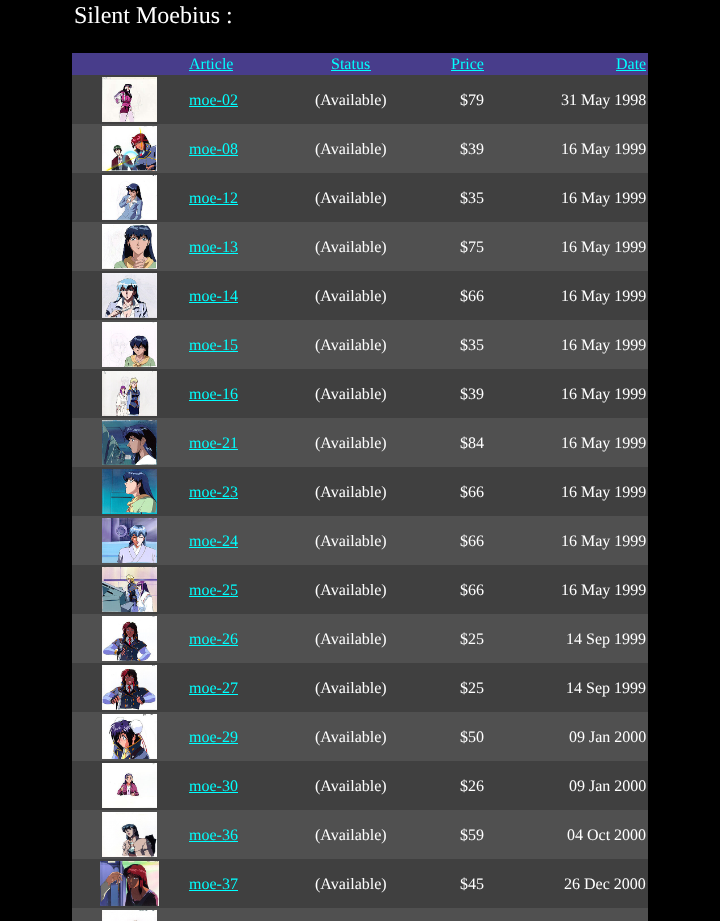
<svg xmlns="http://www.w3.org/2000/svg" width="720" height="921">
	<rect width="100%" height="100%" fill="#000000" />
	<text x="74" y="23" font-family="Liberation Serif" font-size="24" fill="#FFFFFF">Silent Moebius :</text>
	<rect x="72" y="53" width="576" height="22" fill="#483D8B" />
	<text x="189" y="69" font-family="Liberation Serif" font-size="16" fill="#00FFFF">Article</text>
	<rect x="189" y="70" width="44" height="1" fill="#00FFFF" />
	<text x="331" y="69" font-family="Liberation Serif" font-size="16" fill="#00FFFF">Status</text>
	<rect x="331" y="70" width="40" height="1" fill="#00FFFF" />
	<text x="451" y="69" font-family="Liberation Serif" font-size="16" fill="#00FFFF">Price</text>
	<rect x="451" y="70" width="33" height="1" fill="#00FFFF" />
	<text x="616" y="69" font-family="Liberation Serif" font-size="16" fill="#00FFFF">Date</text>
	<rect x="616" y="70" width="30" height="1" fill="#00FFFF" />
	<rect x="72" y="75" width="576" height="49" fill="#404040" />
	<image x="102" y="77" width="55" height="45" href="assets/img1.png" />
	<text x="189" y="105" font-family="Liberation Serif" font-size="16" fill="#00FFFF">moe-02</text>
	<rect x="189" y="106" width="49" height="1" fill="#00FFFF" />
	<g font-family="Liberation Serif" font-size="16" fill="#FFFFFF">
		<text x="315" y="105">(Available)</text>
		<text x="460" y="105">$79</text>
		<text x="561" y="105">31 May 1998</text>
	</g>
	<rect x="72" y="124" width="576" height="49" fill="#505050" />
	<image x="102" y="126" width="55" height="45" href="assets/img2.png" />
	<text x="189" y="154" font-family="Liberation Serif" font-size="16" fill="#00FFFF">moe-08</text>
	<rect x="189" y="155" width="49" height="1" fill="#00FFFF" />
	<g font-family="Liberation Serif" font-size="16" fill="#FFFFFF">
		<text x="315" y="154">(Available)</text>
		<text x="460" y="154">$39</text>
		<text x="561" y="154">16 May 1999</text>
	</g>
	<rect x="72" y="173" width="576" height="49" fill="#404040" />
	<image x="102" y="175" width="55" height="45" href="assets/img3.png" />
	<text x="189" y="203" font-family="Liberation Serif" font-size="16" fill="#00FFFF">moe-12</text>
	<rect x="189" y="204" width="49" height="1" fill="#00FFFF" />
	<g font-family="Liberation Serif" font-size="16" fill="#FFFFFF">
		<text x="315" y="203">(Available)</text>
		<text x="460" y="203">$35</text>
		<text x="561" y="203">16 May 1999</text>
	</g>
	<rect x="72" y="222" width="576" height="49" fill="#505050" />
	<image x="102" y="224" width="55" height="45" href="assets/img4.png" />
	<text x="189" y="252" font-family="Liberation Serif" font-size="16" fill="#00FFFF">moe-13</text>
	<rect x="189" y="253" width="49" height="1" fill="#00FFFF" />
	<g font-family="Liberation Serif" font-size="16" fill="#FFFFFF">
		<text x="315" y="252">(Available)</text>
		<text x="460" y="252">$75</text>
		<text x="561" y="252">16 May 1999</text>
	</g>
	<rect x="72" y="271" width="576" height="49" fill="#404040" />
	<image x="102" y="273" width="55" height="45" href="assets/img5.png" />
	<text x="189" y="301" font-family="Liberation Serif" font-size="16" fill="#00FFFF">moe-14</text>
	<rect x="189" y="302" width="49" height="1" fill="#00FFFF" />
	<g font-family="Liberation Serif" font-size="16" fill="#FFFFFF">
		<text x="315" y="301">(Available)</text>
		<text x="460" y="301">$66</text>
		<text x="561" y="301">16 May 1999</text>
	</g>
	<rect x="72" y="320" width="576" height="49" fill="#505050" />
	<image x="102" y="322" width="55" height="45" href="assets/img6.png" />
	<text x="189" y="350" font-family="Liberation Serif" font-size="16" fill="#00FFFF">moe-15</text>
	<rect x="189" y="351" width="49" height="1" fill="#00FFFF" />
	<g font-family="Liberation Serif" font-size="16" fill="#FFFFFF">
		<text x="315" y="350">(Available)</text>
		<text x="460" y="350">$35</text>
		<text x="561" y="350">16 May 1999</text>
	</g>
	<rect x="72" y="369" width="576" height="49" fill="#404040" />
	<image x="102" y="371" width="55" height="45" href="assets/img7.png" />
	<text x="189" y="399" font-family="Liberation Serif" font-size="16" fill="#00FFFF">moe-16</text>
	<rect x="189" y="400" width="49" height="1" fill="#00FFFF" />
	<g font-family="Liberation Serif" font-size="16" fill="#FFFFFF">
		<text x="315" y="399">(Available)</text>
		<text x="460" y="399">$39</text>
		<text x="561" y="399">16 May 1999</text>
	</g>
	<rect x="72" y="418" width="576" height="49" fill="#505050" />
	<image x="102" y="420" width="55" height="45" href="assets/img8.png" />
	<text x="189" y="448" font-family="Liberation Serif" font-size="16" fill="#00FFFF">moe-21</text>
	<rect x="189" y="449" width="49" height="1" fill="#00FFFF" />
	<g font-family="Liberation Serif" font-size="16" fill="#FFFFFF">
		<text x="315" y="448">(Available)</text>
		<text x="460" y="448">$84</text>
		<text x="561" y="448">16 May 1999</text>
	</g>
	<rect x="72" y="467" width="576" height="49" fill="#404040" />
	<image x="102" y="469" width="55" height="45" href="assets/img9.png" />
	<text x="189" y="497" font-family="Liberation Serif" font-size="16" fill="#00FFFF">moe-23</text>
	<rect x="189" y="498" width="49" height="1" fill="#00FFFF" />
	<g font-family="Liberation Serif" font-size="16" fill="#FFFFFF">
		<text x="315" y="497">(Available)</text>
		<text x="460" y="497">$66</text>
		<text x="561" y="497">16 May 1999</text>
	</g>
	<rect x="72" y="516" width="576" height="49" fill="#505050" />
	<image x="102" y="518" width="55" height="45" href="assets/img10.png" />
	<text x="189" y="546" font-family="Liberation Serif" font-size="16" fill="#00FFFF">moe-24</text>
	<rect x="189" y="547" width="49" height="1" fill="#00FFFF" />
	<g font-family="Liberation Serif" font-size="16" fill="#FFFFFF">
		<text x="315" y="546">(Available)</text>
		<text x="460" y="546">$66</text>
		<text x="561" y="546">16 May 1999</text>
	</g>
	<rect x="72" y="565" width="576" height="49" fill="#404040" />
	<image x="102" y="567" width="55" height="45" href="assets/img11.png" />
	<text x="189" y="595" font-family="Liberation Serif" font-size="16" fill="#00FFFF">moe-25</text>
	<rect x="189" y="596" width="49" height="1" fill="#00FFFF" />
	<g font-family="Liberation Serif" font-size="16" fill="#FFFFFF">
		<text x="315" y="595">(Available)</text>
		<text x="460" y="595">$66</text>
		<text x="561" y="595">16 May 1999</text>
	</g>
	<rect x="72" y="614" width="576" height="49" fill="#505050" />
	<image x="102" y="616" width="55" height="45" href="assets/img12.png" />
	<text x="189" y="644" font-family="Liberation Serif" font-size="16" fill="#00FFFF">moe-26</text>
	<rect x="189" y="645" width="49" height="1" fill="#00FFFF" />
	<g font-family="Liberation Serif" font-size="16" fill="#FFFFFF">
		<text x="315" y="644">(Available)</text>
		<text x="460" y="644">$25</text>
		<text x="566" y="644">14 Sep 1999</text>
	</g>
	<rect x="72" y="663" width="576" height="49" fill="#404040" />
	<image x="102" y="665" width="55" height="45" href="assets/img13.png" />
	<text x="189" y="693" font-family="Liberation Serif" font-size="16" fill="#00FFFF">moe-27</text>
	<rect x="189" y="694" width="49" height="1" fill="#00FFFF" />
	<g font-family="Liberation Serif" font-size="16" fill="#FFFFFF">
		<text x="315" y="693">(Available)</text>
		<text x="460" y="693">$25</text>
		<text x="566" y="693">14 Sep 1999</text>
	</g>
	<rect x="72" y="712" width="576" height="49" fill="#505050" />
	<image x="102" y="714" width="55" height="45" href="assets/img14.png" />
	<text x="189" y="742" font-family="Liberation Serif" font-size="16" fill="#00FFFF">moe-29</text>
	<rect x="189" y="743" width="49" height="1" fill="#00FFFF" />
	<g font-family="Liberation Serif" font-size="16" fill="#FFFFFF">
		<text x="315" y="742">(Available)</text>
		<text x="460" y="742">$50</text>
		<text x="569" y="742">09 Jan 2000</text>
	</g>
	<rect x="72" y="761" width="576" height="49" fill="#404040" />
	<image x="102" y="763" width="55" height="45" href="assets/img15.png" />
	<text x="189" y="791" font-family="Liberation Serif" font-size="16" fill="#00FFFF">moe-30</text>
	<rect x="189" y="792" width="49" height="1" fill="#00FFFF" />
	<g font-family="Liberation Serif" font-size="16" fill="#FFFFFF">
		<text x="315" y="791">(Available)</text>
		<text x="460" y="791">$26</text>
		<text x="569" y="791">09 Jan 2000</text>
	</g>
	<rect x="72" y="810" width="576" height="49" fill="#505050" />
	<image x="102" y="812" width="55" height="45" href="assets/img16.png" />
	<text x="189" y="840" font-family="Liberation Serif" font-size="16" fill="#00FFFF">moe-36</text>
	<rect x="189" y="841" width="49" height="1" fill="#00FFFF" />
	<g font-family="Liberation Serif" font-size="16" fill="#FFFFFF">
		<text x="315" y="840">(Available)</text>
		<text x="460" y="840">$59</text>
		<text x="567" y="840">04 Oct 2000</text>
	</g>
	<rect x="72" y="859" width="576" height="49" fill="#404040" />
	<image x="100" y="861" width="59" height="45" href="assets/img17.png" />
	<text x="189" y="889" font-family="Liberation Serif" font-size="16" fill="#00FFFF">moe-37</text>
	<rect x="189" y="890" width="49" height="1" fill="#00FFFF" />
	<g font-family="Liberation Serif" font-size="16" fill="#FFFFFF">
		<text x="315" y="889">(Available)</text>
		<text x="460" y="889">$45</text>
		<text x="564" y="889">26 Dec 2000</text>
	</g>
	<rect x="72" y="908" width="576" height="13" fill="#505050" />
	<image x="102" y="910" width="55" height="11" href="assets/img18.png" />
</svg>
